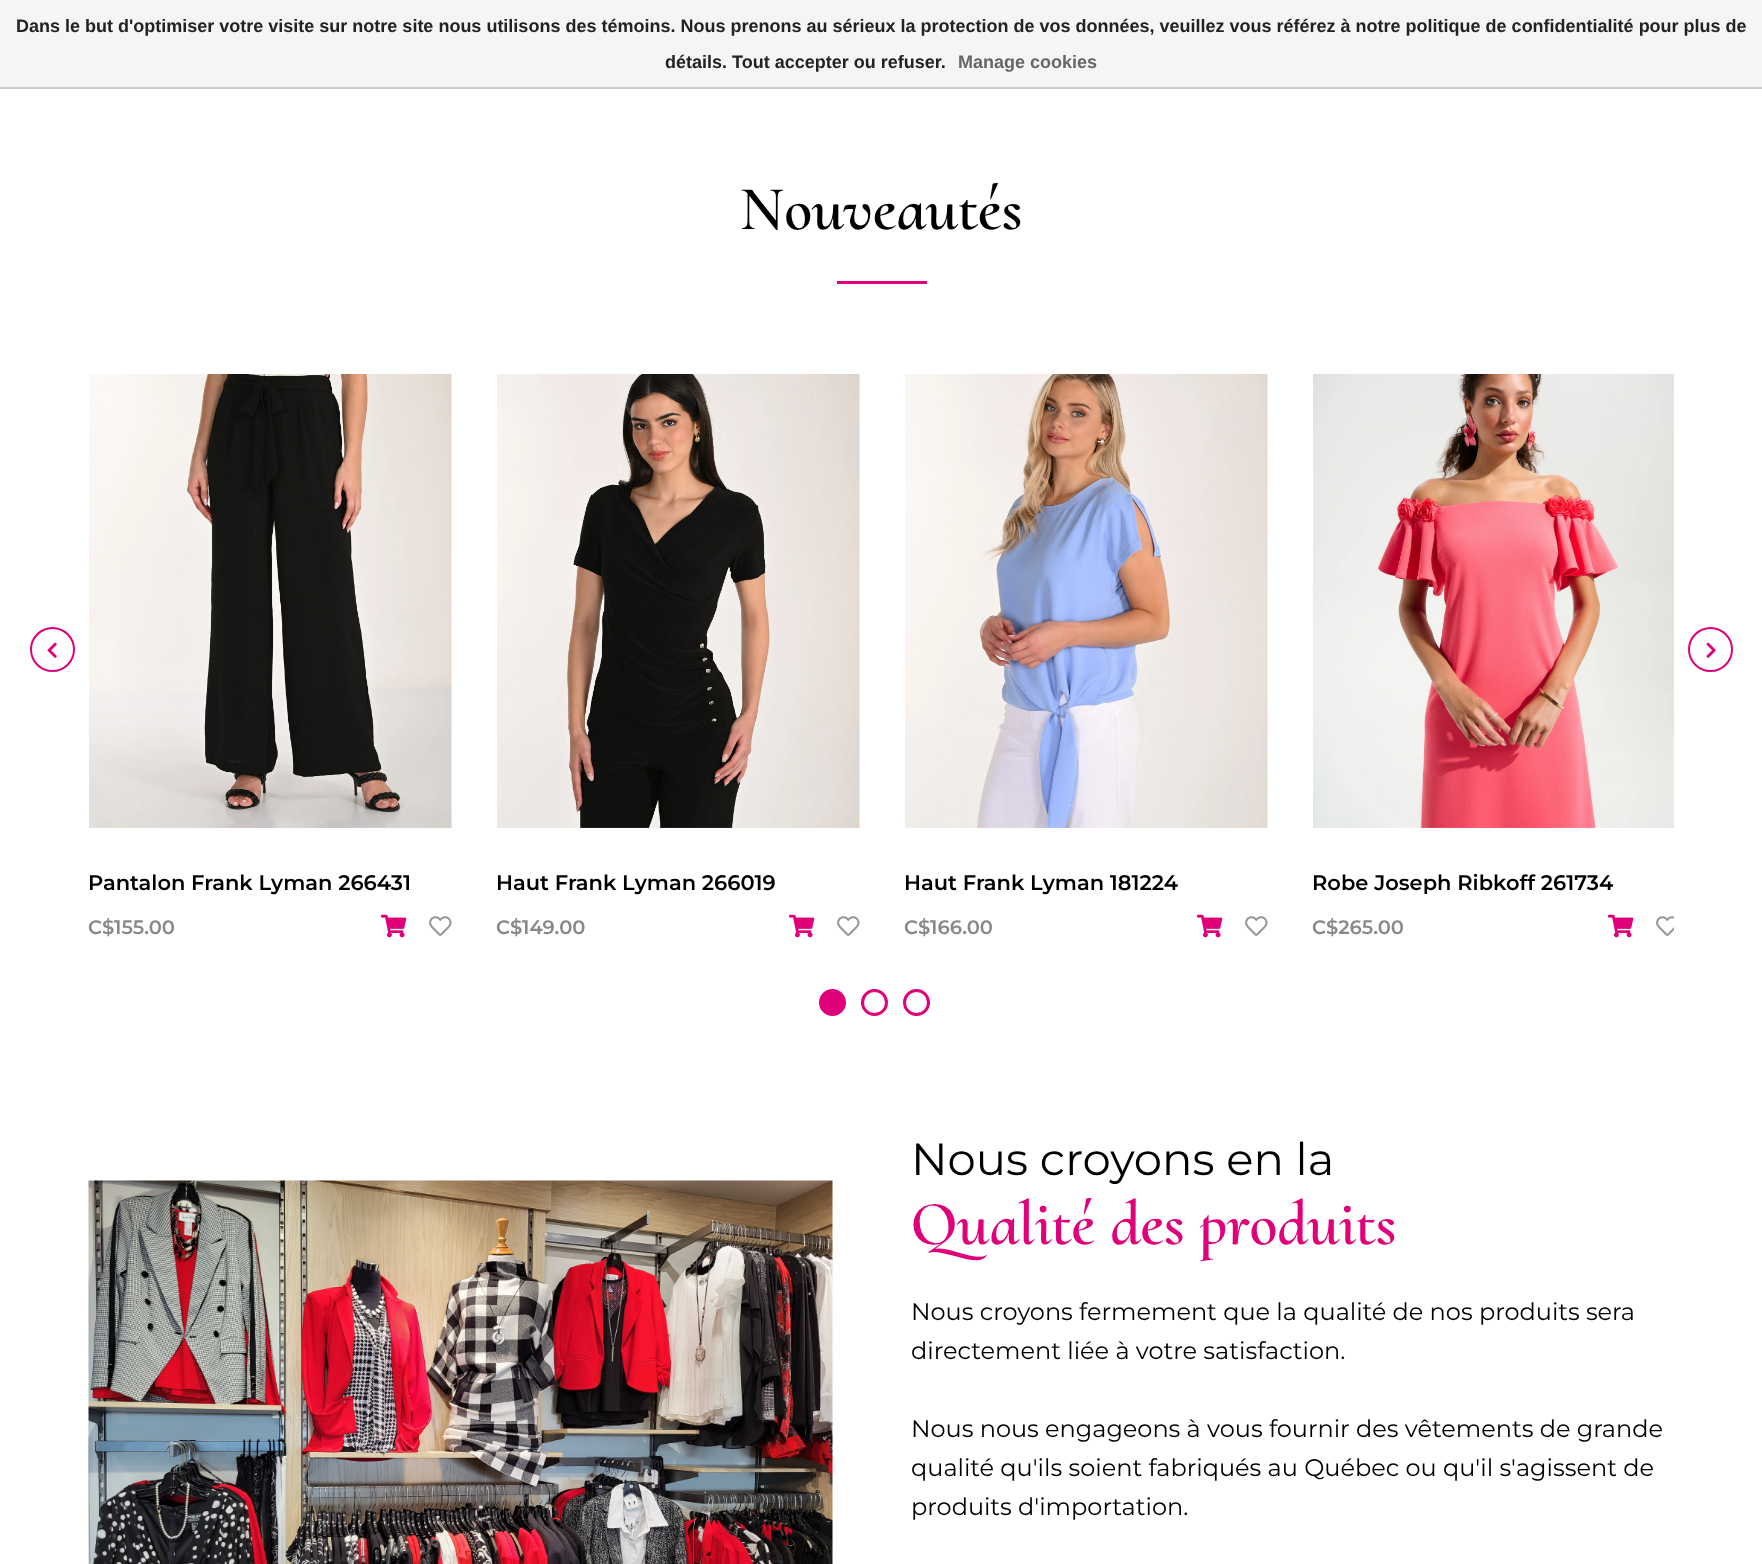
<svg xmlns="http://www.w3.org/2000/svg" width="1762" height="1564">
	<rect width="100%" height="100%" fill="#FFFFFF" />
	<rect x="0" y="0" width="1762" height="87" fill="#F5F5F5" />
	<rect x="0" y="87" width="1762" height="2" fill="#CCCCCC" />
	<g font-family="Liberation Sans" font-size="18" font-weight="700" fill="#222222">
		<text x="16" y="32">Dans le but d'optimiser votre visite sur notre site nous utilisons des témoins. Nous prenons au sérieux la protection de vos données, veuillez vous référez à notre politique de confidentialité pour plus de</text>
		<text x="665" y="68">détails. Tout accepter ou refuser.</text>
	</g>
	<text x="958" y="68" font-family="Liberation Sans" font-size="18" font-weight="700" fill="#666666">Manage cookies</text>
	<text x="740" y="229" font-family="Cormorant Upright" font-size="63" font-weight="600" fill="#000000">Nouveautés</text>
	<rect x="837" y="281" width="90" height="3" fill="#E0007A" />
	<circle cx="52.5" cy="649.5" r="21.5" fill="none" stroke="#E0007A" stroke-width="2" />
	<image x="47" y="642" width="10" height="16" href="assets/img1.png" />
	<circle cx="1710.5" cy="649.5" r="21.5" fill="none" stroke="#E0007A" stroke-width="2" />
	<image x="1706" y="642" width="10" height="16" href="assets/img2.png" />
	<image x="89" y="374" width="363" height="454" href="assets/img3.png" />
	<text x="88" y="890" font-family="Montserrat" font-size="21" font-weight="600" fill="#000000">Pantalon Frank Lyman 266431</text>
	<text x="88" y="934" font-family="Montserrat" font-size="19.5" font-weight="600" fill="#888888">C$155.00</text>
	<image x="381" y="914" width="26" height="24" href="assets/img4.png" />
	<image x="429" y="916" width="23" height="20" href="assets/img5.png" />
	<image x="497" y="374" width="363" height="454" href="assets/img6.png" />
	<text x="496" y="890" font-family="Montserrat" font-size="21" font-weight="600" fill="#000000">Haut Frank Lyman 266019</text>
	<text x="496" y="934" font-family="Montserrat" font-size="19.5" font-weight="600" fill="#888888">C$149.00</text>
	<image x="789" y="914" width="26" height="24" href="assets/img4.png" />
	<image x="837" y="916" width="23" height="20" href="assets/img5.png" />
	<image x="905" y="374" width="363" height="454" href="assets/img7.png" />
	<text x="904" y="890" font-family="Montserrat" font-size="21" font-weight="600" fill="#000000">Haut Frank Lyman 181224</text>
	<text x="904" y="934" font-family="Montserrat" font-size="19.5" font-weight="600" fill="#888888">C$166.00</text>
	<image x="1197" y="914" width="26" height="24" href="assets/img4.png" />
	<image x="1245" y="916" width="23" height="20" href="assets/img5.png" />
	<image x="1313" y="374" width="361" height="454" href="assets/img8.png" />
	<text x="1312" y="890" font-family="Montserrat" font-size="21" font-weight="600" fill="#000000">Robe Joseph Ribkoff 261734</text>
	<text x="1312" y="934" font-family="Montserrat" font-size="19.5" font-weight="600" fill="#888888">C$265.00</text>
	<image x="1608" y="914" width="26" height="24" href="assets/img4.png" />
	<image x="1656" y="916" width="18" height="20" href="assets/img9.png" />
	<circle cx="832.5" cy="1002.5" r="12" fill="#E0007A" stroke="#E0007A" stroke-width="3" />
	<circle cx="874.5" cy="1002.5" r="12" fill="none" stroke="#E0007A" stroke-width="3" />
	<circle cx="916.5" cy="1002.5" r="12" fill="none" stroke="#E0007A" stroke-width="3" />
	<image x="88" y="1180" width="745" height="384" href="assets/img10.png" />
	<text x="911" y="1175" font-family="Montserrat" font-size="45" fill="#000000">Nous croyons en la</text>
	<text x="911" y="1244" font-family="Cormorant Upright" font-size="63" font-weight="600" fill="#E0007A">Qualité des produits</text>
	<g font-family="Montserrat" font-size="24" fill="#000000">
		<text x="911" y="1320">Nous croyons fermement que la qualité de nos produits sera</text>
		<text x="911" y="1359">directement liée à votre satisfaction.</text>
		<text x="911" y="1437">Nous nous engageons à vous fournir des vêtements de grande</text>
		<text x="911" y="1476">qualité qu'ils soient fabriqués au Québec ou qu'il s'agissent de</text>
		<text x="911" y="1515">produits d'importation.</text>
	</g>
</svg>
